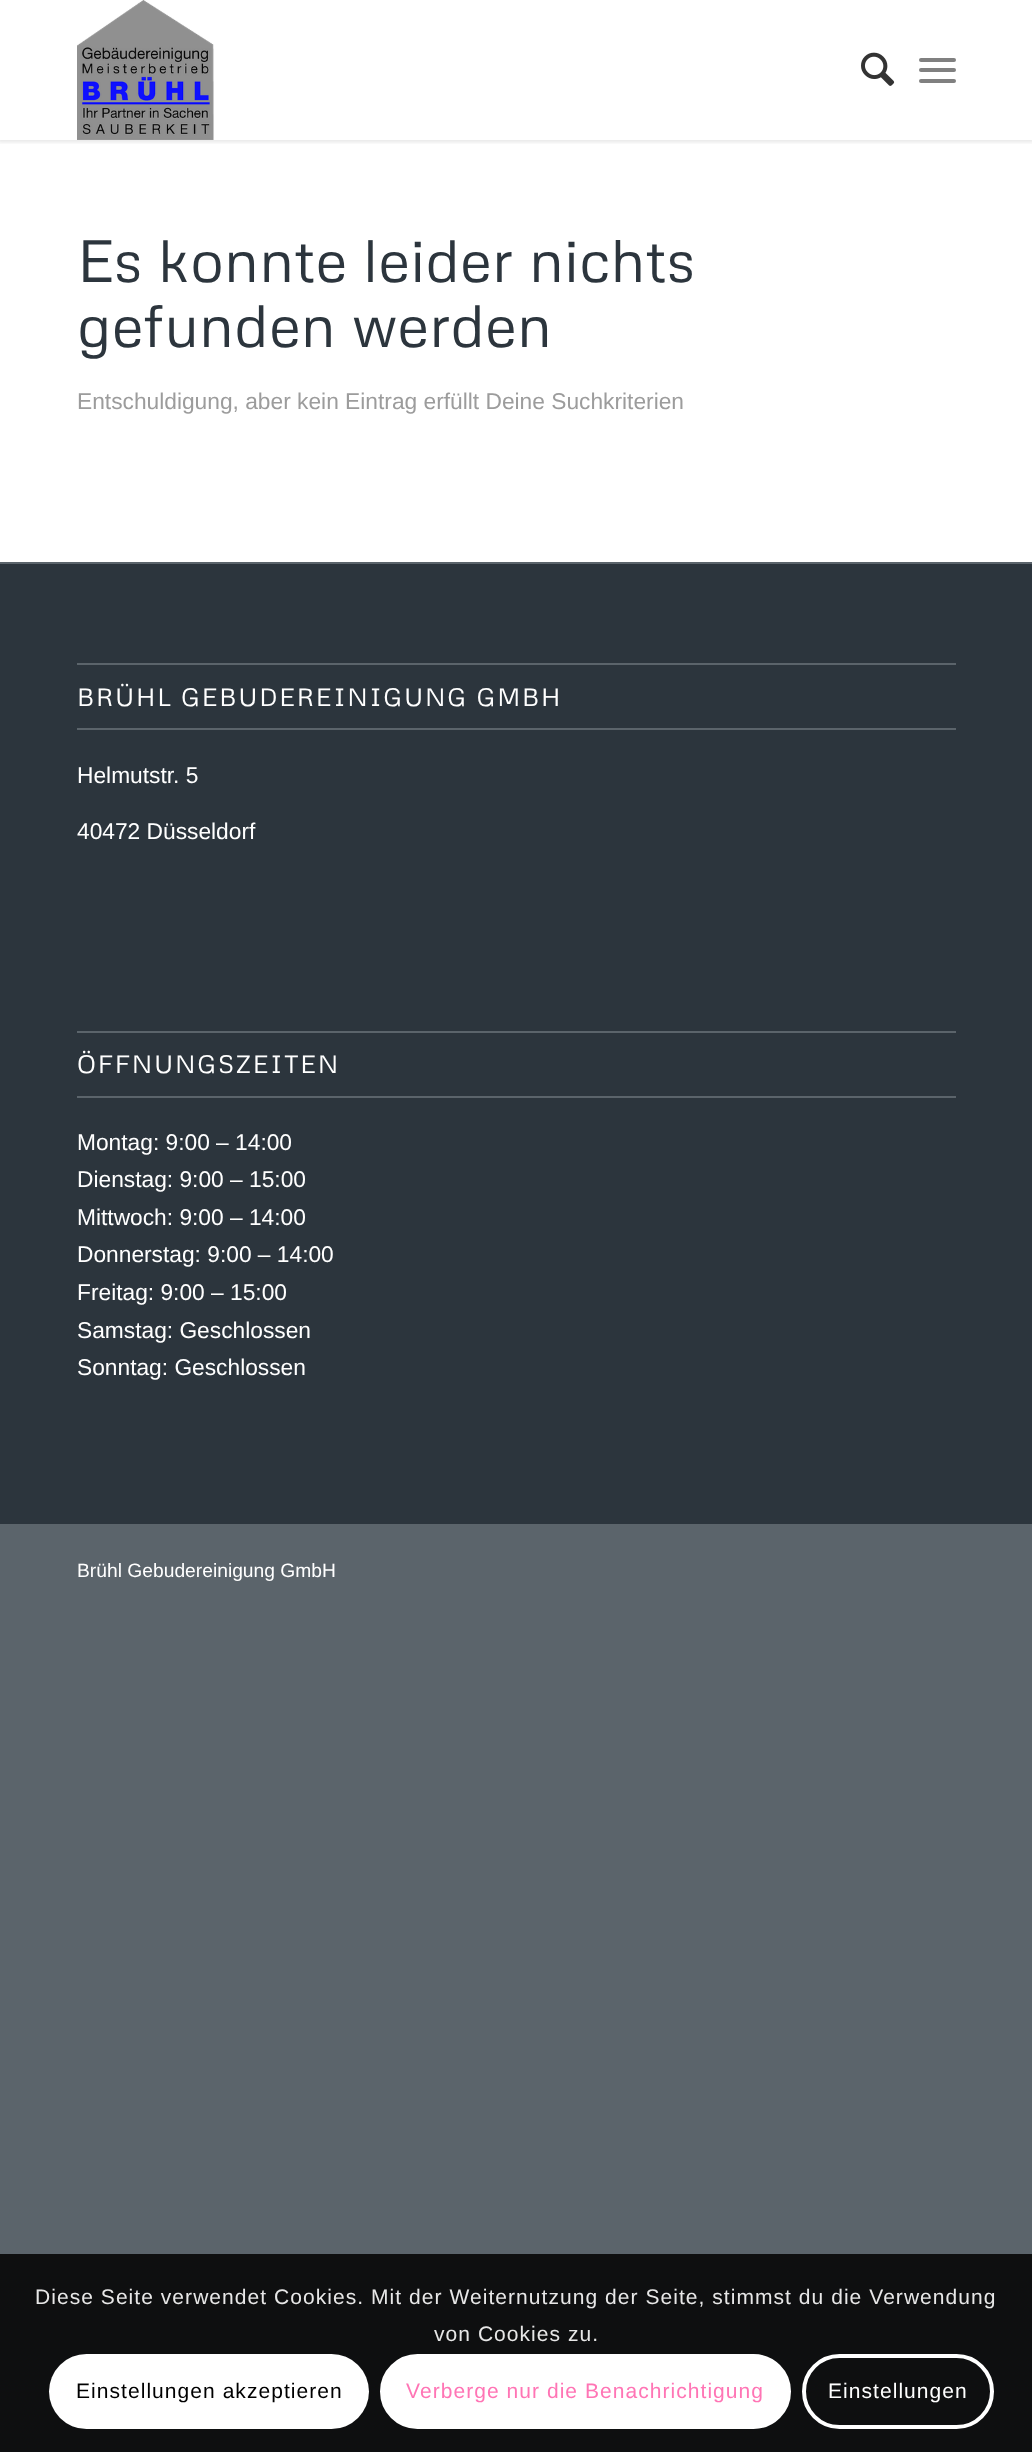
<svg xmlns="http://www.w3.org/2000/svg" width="1032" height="2452">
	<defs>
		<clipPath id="clip1"><rect x="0" y="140" width="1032" height="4" /></clipPath>
	</defs>
	<rect width="100%" height="100%" fill="#5B646B" />
	<rect x="0" y="0" width="1032" height="562" fill="#FFFFFF" />
	<g clip-path="url(#clip1)">
		<rect x="-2" y="-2" width="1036" height="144" fill="#000000" fill-opacity="0.1" filter="blur(2px)" />
	</g>
	<image x="77" y="0" width="137" height="140" href="assets/img1.png" />
	<image x="861" y="52" width="34" height="34" href="assets/img2.png" />
	<rect x="919" y="68" width="37" height="4" rx="2" fill="#808080" />
	<rect x="919" y="58" width="37" height="4" rx="2" fill="#808080" />
	<rect x="919" y="79" width="37" height="4" rx="2" fill="#808080" />
	<g font-family="Metrophobic" font-size="59.5" fill="#2C353D">
		<text x="77" y="282">Es konnte leider nichts</text>
		<text x="77" y="347">gefunden werden</text>
	</g>
	<text x="77" y="409" font-family="Liberation Sans" font-size="22.75" fill="#9C9C9C">Entschuldigung, aber kein Eintrag erfüllt Deine Suchkriterien</text>
	<rect x="0" y="564" width="1032" height="960" fill="#2C353D" />
	<rect x="77" y="663" width="879" height="2" fill="#5B646B" />
	<rect x="77" y="728" width="879" height="2" fill="#5B646B" />
	<text x="77" y="706" font-family="Metrophobic" font-size="25" letter-spacing="1.75" fill="#FFFFFF">BRÜHL GEBUDEREINIGUNG GMBH</text>
	<g font-family="Liberation Sans" font-size="22.75" fill="#FFFFFF">
		<text x="77" y="783">Helmutstr. 5</text>
		<text x="77" y="839">40472 Düsseldorf</text>
	</g>
	<rect x="77" y="1031" width="879" height="2" fill="#5B646B" />
	<rect x="77" y="1096" width="879" height="2" fill="#5B646B" />
	<text x="77" y="1073" font-family="Metrophobic" font-size="25" letter-spacing="1.75" fill="#FFFFFF">ÖFFNUNGSZEITEN</text>
	<g font-family="Liberation Sans" font-size="22.75" fill="#FFFFFF">
		<text x="77" y="1150">Montag: 9:00 – 14:00</text>
		<text x="77" y="1187">Dienstag: 9:00 – 15:00</text>
		<text x="77" y="1225">Mittwoch: 9:00 – 14:00</text>
		<text x="77" y="1262">Donnerstag: 9:00 – 14:00</text>
		<text x="77" y="1300">Freitag: 9:00 – 15:00</text>
		<text x="77" y="1338">Samstag: Geschlossen</text>
		<text x="77" y="1375">Sonntag: Geschlossen</text>
	</g>
	<text x="77" y="1577" font-family="Liberation Sans" font-size="19.25" fill="#FFFFFF">Brühl Gebudereinigung GmbH</text>
	<rect x="0" y="2254" width="1032" height="198" fill="#0E0F10" />
	<g font-family="Liberation Sans" font-size="21" letter-spacing="1.05" fill="#E7E7E7">
		<text x="35" y="2304">Diese Seite verwendet Cookies. Mit der Weiternutzung der Seite, stimmst du die Verwendung</text>
		<text x="434" y="2341">von Cookies zu.</text>
	</g>
	<rect x="49" y="2354" width="320" height="75" rx="37.5" fill="#FFFFFF" />
	<text x="76" y="2398" font-family="Liberation Sans" font-size="21" letter-spacing="1.05" fill="#000000">Einstellungen akzeptieren</text>
	<rect x="382" y="2356" width="407" height="71" rx="35.5" fill="#FFFFFF" stroke="#FFFFFF" stroke-width="4" />
	<text x="406" y="2398" font-family="Liberation Sans" font-size="21" letter-spacing="1.05" fill="#FF75B5">Verberge nur die Benachrichtigung</text>
	<rect x="804" y="2356" width="188" height="71" rx="35.5" fill="none" stroke="#FFFFFF" stroke-width="4" />
	<text x="828" y="2398" font-family="Liberation Sans" font-size="21" letter-spacing="1.05" fill="#FFFFFF">Einstellungen</text>
</svg>
